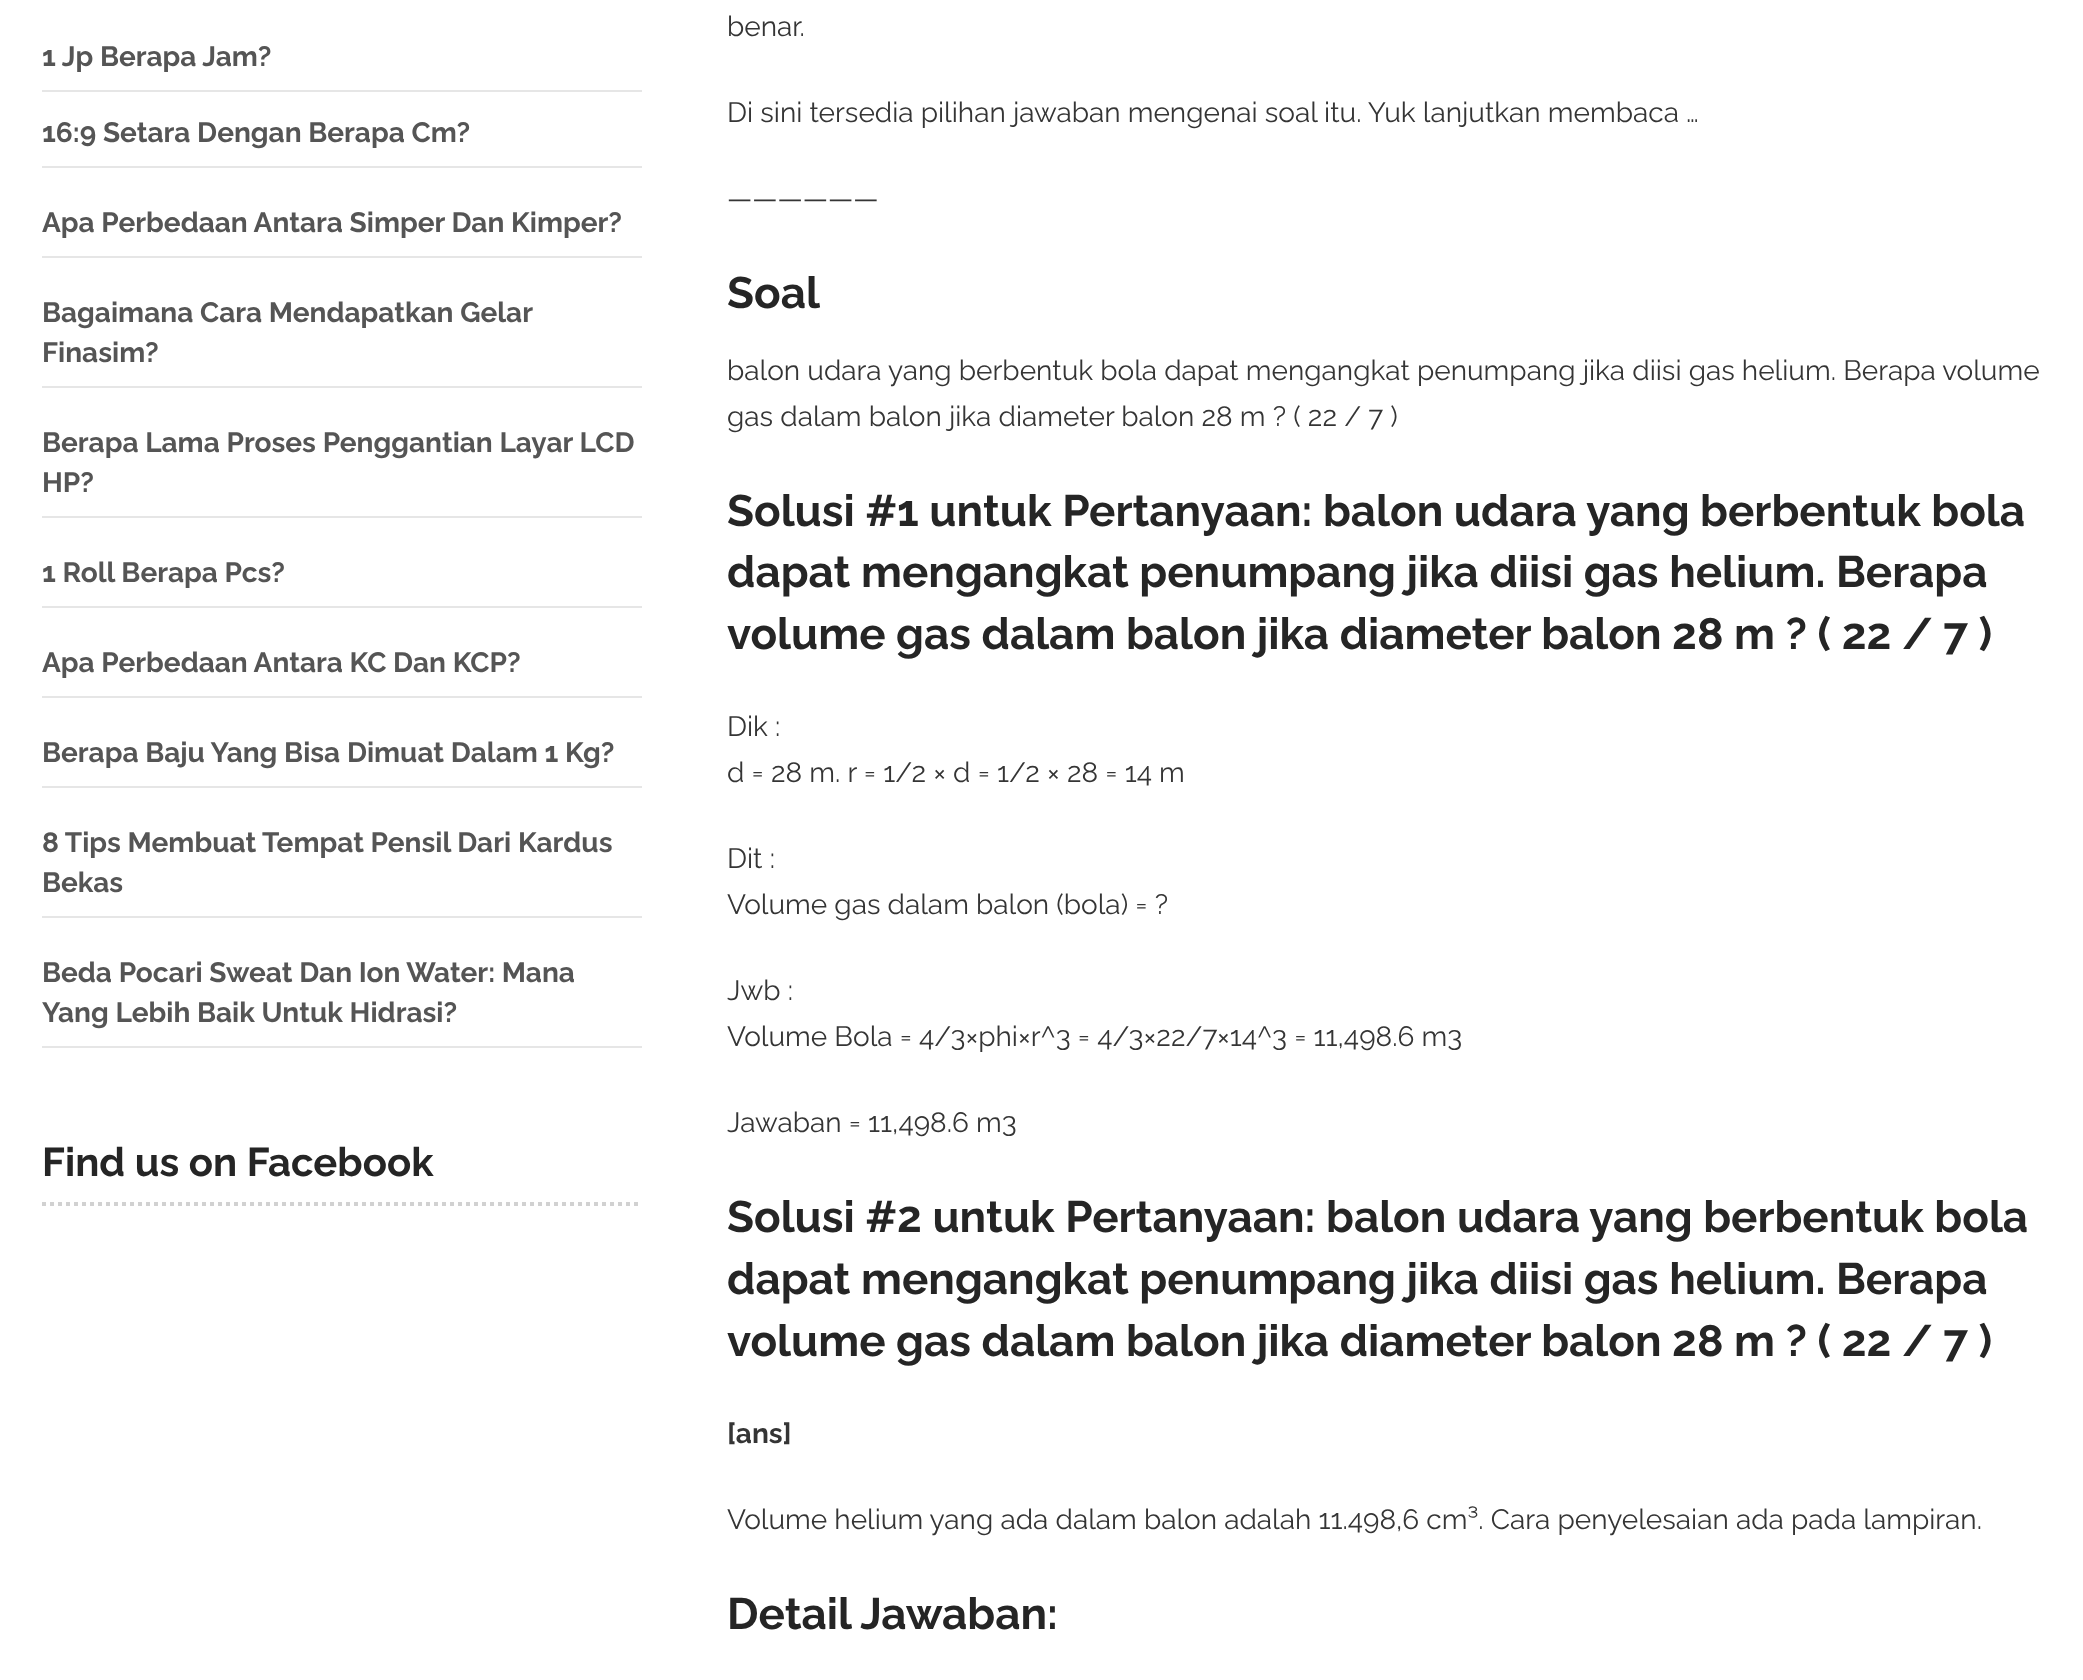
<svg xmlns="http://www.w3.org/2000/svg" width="2083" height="1680">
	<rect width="100%" height="100%" fill="#FFFFFF" />
	<rect x="42" y="90" width="600" height="2" fill="#E6E6E6" />
	<text x="42" y="66" font-family="Raleway" font-size="28" font-weight="700" fill="#555555">1 Jp Berapa Jam?</text>
	<rect x="42" y="166" width="600" height="2" fill="#E6E6E6" />
	<text x="42" y="142" font-family="Raleway" font-size="28" font-weight="700" fill="#555555">16:9 Setara Dengan Berapa Cm?</text>
	<rect x="42" y="256" width="600" height="2" fill="#E6E6E6" />
	<text x="42" y="232" font-family="Raleway" font-size="28" font-weight="700" fill="#555555">Apa Perbedaan Antara Simper Dan Kimper?</text>
	<rect x="42" y="386" width="600" height="2" fill="#E6E6E6" />
	<g font-family="Raleway" font-size="28" font-weight="700" fill="#555555">
		<text x="42" y="322">Bagaimana Cara Mendapatkan Gelar</text>
		<text x="42" y="362">Finasim?</text>
	</g>
	<rect x="42" y="516" width="600" height="2" fill="#E6E6E6" />
	<g font-family="Raleway" font-size="28" font-weight="700" fill="#555555">
		<text x="42" y="452">Berapa Lama Proses Penggantian Layar LCD</text>
		<text x="42" y="492">HP?</text>
	</g>
	<rect x="42" y="606" width="600" height="2" fill="#E6E6E6" />
	<text x="42" y="582" font-family="Raleway" font-size="28" font-weight="700" fill="#555555">1 Roll Berapa Pcs?</text>
	<rect x="42" y="696" width="600" height="2" fill="#E6E6E6" />
	<text x="42" y="672" font-family="Raleway" font-size="28" font-weight="700" fill="#555555">Apa Perbedaan Antara KC Dan KCP?</text>
	<rect x="42" y="786" width="600" height="2" fill="#E6E6E6" />
	<text x="42" y="762" font-family="Raleway" font-size="28" font-weight="700" fill="#555555">Berapa Baju Yang Bisa Dimuat Dalam 1 Kg?</text>
	<rect x="42" y="916" width="600" height="2" fill="#E6E6E6" />
	<g font-family="Raleway" font-size="28" font-weight="700" fill="#555555">
		<text x="42" y="852">8 Tips Membuat Tempat Pensil Dari Kardus</text>
		<text x="42" y="892">Bekas</text>
	</g>
	<rect x="42" y="1046" width="600" height="2" fill="#E6E6E6" />
	<g font-family="Raleway" font-size="28" font-weight="700" fill="#555555">
		<text x="42" y="982">Beda Pocari Sweat Dan Ion Water: Mana</text>
		<text x="42" y="1022">Yang Lebih Baik Untuk Hidrasi?</text>
	</g>
	<path d="M42 1204H642" fill="none" stroke="#D1D1D1" stroke-width="4" stroke-dasharray="4 4" />
	<text x="42" y="1176" font-family="Raleway" font-size="40" font-weight="700" fill="#252525">Find us on Facebook</text>
	<g font-family="Raleway" font-size="28" fill="#353535">
		<text x="727" y="36">benar.</text>
		<text x="727" y="122">Di sini tersedia pilihan jawaban mengenai soal itu. Yuk lanjutkan membaca …</text>
		<text x="727" y="208">——————</text>
	</g>
	<text x="727" y="308" font-family="Raleway" font-size="44" font-weight="700" fill="#252525">Soal</text>
	<g font-family="Raleway" font-size="28" fill="#353535">
		<text x="727" y="380">balon udara yang berbentuk bola dapat mengangkat penumpang jika diisi gas helium. Berapa volume</text>
		<text x="727" y="426">gas dalam balon jika diameter balon 28 m ? ( 22 / 7 )</text>
	</g>
	<g font-family="Raleway" font-size="44" font-weight="700" fill="#252525">
		<text x="727" y="526">Solusi #1 untuk Pertanyaan: balon udara yang berbentuk bola</text>
		<text x="727" y="587">dapat mengangkat penumpang jika diisi gas helium. Berapa</text>
		<text x="727" y="649">volume gas dalam balon jika diameter balon 28 m ? ( 22 / 7 )</text>
	</g>
	<g font-family="Raleway" font-size="28" fill="#353535">
		<text x="727" y="736">Dik :</text>
		<text x="727" y="782">d = 28 m. r = 1/2 × d = 1/2 × 28 = 14 m</text>
		<text x="727" y="868">Dit :</text>
		<text x="727" y="914">Volume gas dalam balon (bola) = ?</text>
		<text x="727" y="1000">Jwb :</text>
		<text x="727" y="1046">Volume Bola = 4/3×phi×r^3 = 4/3×22/7×14^3 = 11,498.6 m3</text>
		<text x="727" y="1132">Jawaban = 11,498.6 m3</text>
	</g>
	<g font-family="Raleway" font-size="44" font-weight="700" fill="#252525">
		<text x="727" y="1232">Solusi #2 untuk Pertanyaan: balon udara yang berbentuk bola</text>
		<text x="727" y="1294">dapat mengangkat penumpang jika diisi gas helium. Berapa</text>
		<text x="727" y="1356">volume gas dalam balon jika diameter balon 28 m ? ( 22 / 7 )</text>
	</g>
	<text x="727" y="1443" font-family="Raleway" font-size="28" font-weight="700" fill="#353535">[ans]</text>
	<text x="727" y="1529" font-family="Raleway" font-size="28" fill="#353535">Volume helium yang ada dalam balon adalah 11.498,6 cm³. Cara penyelesaian ada pada lampiran.</text>
	<text x="727" y="1629" font-family="Raleway" font-size="44" font-weight="700" fill="#252525">Detail Jawaban:</text>
</svg>
